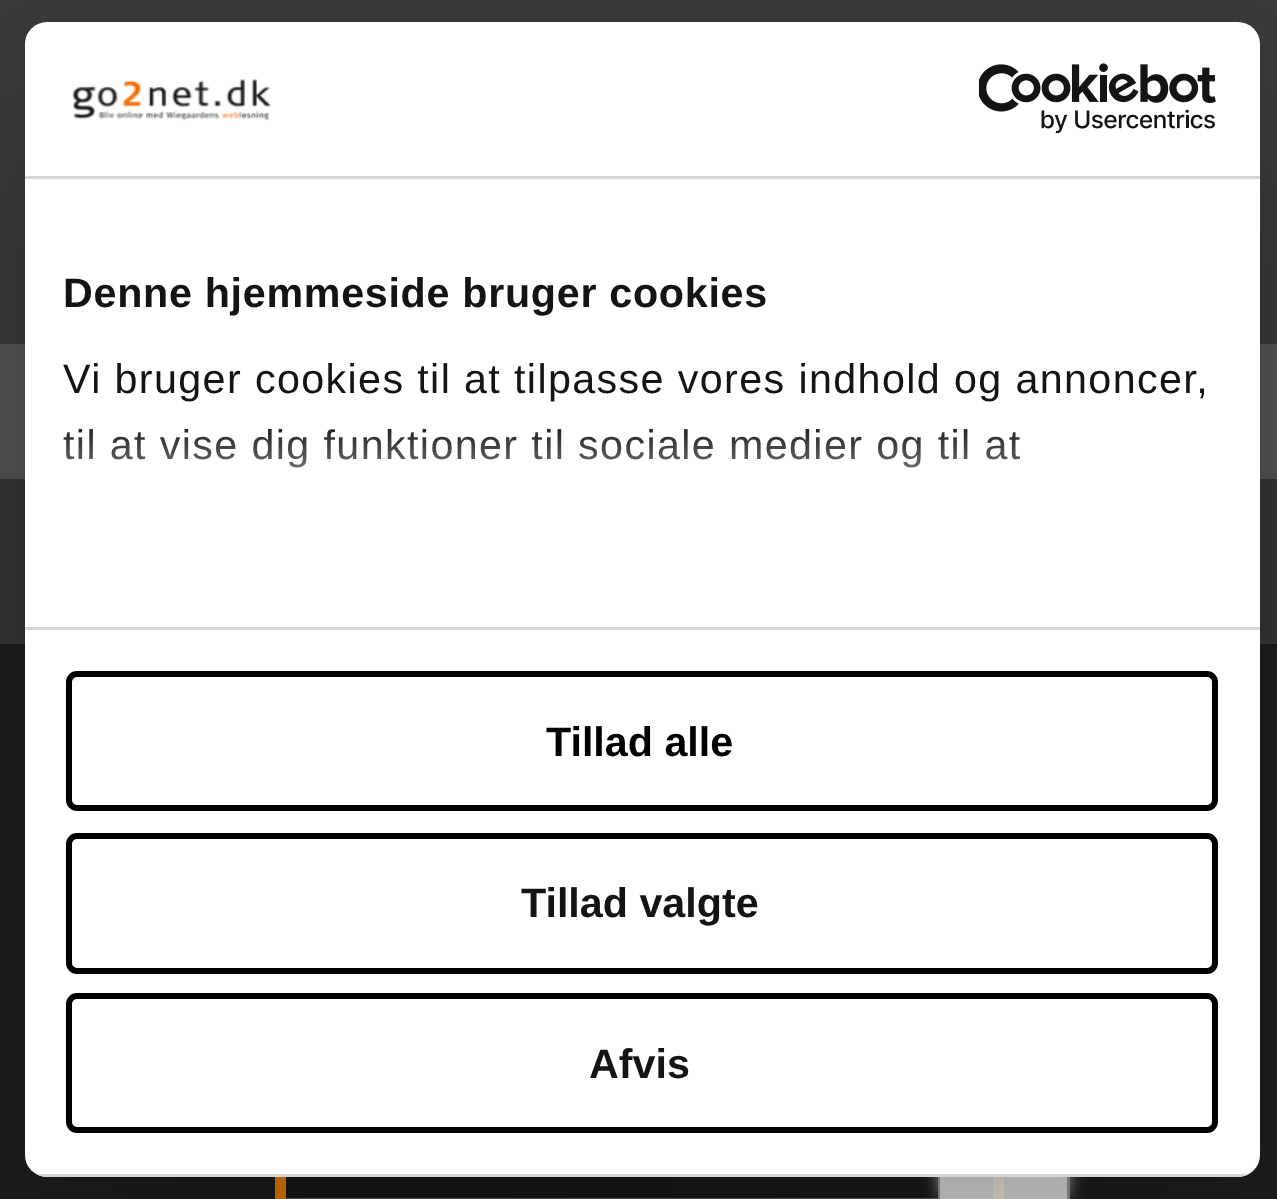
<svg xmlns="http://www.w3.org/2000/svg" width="1277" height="1199">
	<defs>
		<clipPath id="clip1"><path d="M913 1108H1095V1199H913ZM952 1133H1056C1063.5 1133 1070 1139.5 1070 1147V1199H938V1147C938 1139.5 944.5 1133 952 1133Z" clip-rule="evenodd" /></clipPath>
		<clipPath id="clip2"><path d="M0 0H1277V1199H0ZM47 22H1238C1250 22 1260 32 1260 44V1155C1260 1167 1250 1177 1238 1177H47C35 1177 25 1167 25 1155V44C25 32 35 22 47 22Z" clip-rule="evenodd" /></clipPath>
		<linearGradient id="g1" gradientUnits="userSpaceOnUse" x1="623" y1="627" x2="623" y2="421"><stop offset="0" stop-color="#FFFFFF" /><stop offset="0.5" stop-color="#FFFFFF" stop-opacity="0.8" /><stop offset="1" stop-color="#FFFFFF" stop-opacity="0" /></linearGradient>
		<clipPath id="clip3"><rect x="25" y="22" width="1235" height="1155" rx="22" /></clipPath>
	</defs>
	<rect width="100%" height="100%" fill="#3B3B3B" />
	<rect x="0" y="344" width="1277" height="135" fill="#555555" />
	<rect x="0" y="479" width="1277" height="165" fill="#363636" />
	<rect x="0" y="644" width="1277" height="555" fill="#1E1E1E" />
	<rect x="286" y="1198" width="707" height="1" fill="#FFFFFF" />
	<image x="286" y="1177" width="707" height="22" href="assets/img3.png" />
	<path d="M289 902H990C998 902 1004 908 1004 916V1199H275V916C275 908 281 902 289 902ZM289 913H990C992 913 993 914 993 916V1199H286V916C286 914 287 913 289 913Z" fill="#F07D08" fill-rule="evenodd" />
	<g clip-path="url(#clip1)">
		<rect x="938" y="1133" width="132" height="66" rx="14" fill="#BBBBBB" fill-opacity="0.9" filter="blur(8px)" />
	</g>
	<rect x="938" y="1177" width="132" height="22" fill="#FAFAFA" fill-opacity="0.9" />
	<path d="M952 1133H1056C1064 1133 1070 1139 1070 1147V1199H938V1147C938 1139 944 1133 952 1133ZM952 1136H1056C1062 1136 1067 1141 1067 1147V1199H940V1147C940 1141 945 1136 952 1136Z" fill="#93948C" fill-opacity="0.9" fill-rule="evenodd" />
	<g clip-path="url(#clip2)">
		<rect x="25" y="110" width="1235" height="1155" rx="22" fill="#000000" fill-opacity="0.3" filter="blur(93.5px)" />
	</g>
	<rect x="25" y="22" width="1235" height="1155" rx="22" fill="#FFFFFF" />
	<rect x="25" y="176" width="1235" height="3" fill="#D6D6D6" />
	<image x="72" y="79" width="199" height="42" href="assets/img1.png" />
	<image x="979" y="63" width="237" height="71" href="assets/img2.png" />
	<rect x="25" y="627" width="1235" height="3" fill="#D6D6D6" />
	<text x="63" y="307" font-family="Liberation Sans" font-size="41.25" font-weight="700" letter-spacing="0.7" fill="#141414">Denne hjemmeside bruger cookies</text>
	<g font-family="Liberation Sans" font-size="41.25" letter-spacing="1.38" fill="#141414">
		<text x="63" y="393">Vi bruger cookies til at tilpasse vores indhold og annoncer,</text>
		<text x="63" y="459">til at vise dig funktioner til sociale medier og til at</text>
	</g>
	<rect x="63" y="429" width="957" height="39" fill="url(#g1)" />
	<g clip-path="url(#clip3)">
		<rect x="36" y="1174" width="1213" height="3" fill="#D6D6D6" />
	</g>
	<rect x="69" y="674" width="1146" height="134" rx="8" fill="none" stroke="#000000" stroke-width="6" />
	<text x="546" y="756" font-family="Liberation Sans" font-size="41.25" font-weight="700" fill="#000000">Tillad alle</text>
	<rect x="69" y="836" width="1146" height="135" rx="8" fill="none" stroke="#000000" stroke-width="6" />
	<text x="521" y="917" font-family="Liberation Sans" font-size="41.25" font-weight="700" fill="#141414">Tillad valgte</text>
	<rect x="69" y="996" width="1146" height="134" rx="8" fill="none" stroke="#000000" stroke-width="6" />
	<text x="589" y="1078" font-family="Liberation Sans" font-size="41.25" font-weight="700" fill="#141414">Afvis</text>
</svg>
